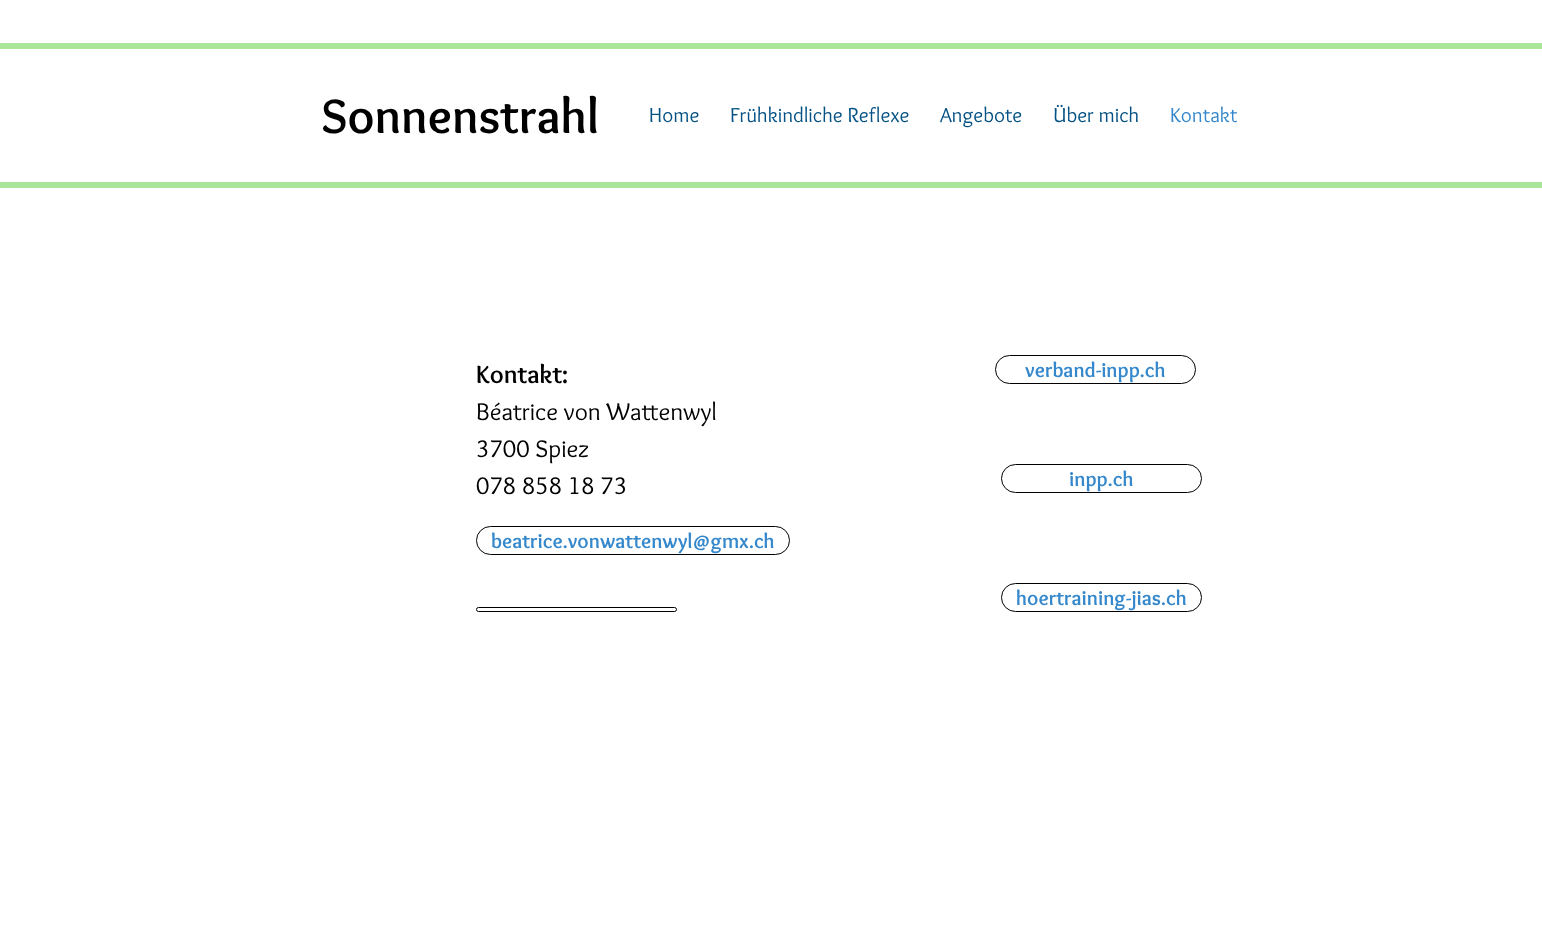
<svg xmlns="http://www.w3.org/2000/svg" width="1542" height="942">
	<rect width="100%" height="100%" fill="#FFFFFF" />
	<rect x="0" y="43" width="1542" height="6" fill="#AAE69A" />
	<rect x="0" y="182" width="1542" height="6" fill="#AAE69A" />
	<text x="321" y="133" font-family="Overlock" font-size="50" font-weight="700" fill="#000000">Sonnenstrahl</text>
	<g font-family="Overlock" font-size="21" fill="#045184">
		<text x="649" y="122">Home</text>
		<text x="730" y="122">Frühkindliche Reflexe</text>
		<text x="940" y="122">Angebote</text>
		<text x="1053" y="122">Über mich</text>
	</g>
	<text x="1170" y="122" font-family="Overlock" font-size="21" fill="#3588CC">Kontakt</text>
	<text x="476" y="383" font-family="Overlock" font-size="26" font-weight="700" fill="#000000">Kontakt:</text>
	<g font-family="Overlock" font-size="25" fill="#000000">
		<text x="476" y="420">Béatrice von Wattenwyl</text>
		<text x="476" y="457">3700 Spiez</text>
		<text x="476" y="494">078 858 18 73</text>
	</g>
	<rect x="995.5" y="355.5" width="200" height="28" rx="14" fill="none" stroke="#000000" />
	<text x="1025" y="377" font-family="Overlock" font-size="21" font-weight="700" fill="#3588CC">verband-inpp.ch</text>
	<rect x="1001.5" y="464.5" width="200" height="28" rx="14" fill="none" stroke="#000000" />
	<text x="1069" y="486" font-family="Overlock" font-size="21" font-weight="700" fill="#3588CC">inpp.ch</text>
	<rect x="476.5" y="526.5" width="313" height="28" rx="14" fill="none" stroke="#000000" />
	<text x="491" y="548" font-family="Overlock" font-size="21" font-weight="700" fill="#3588CC">beatrice.vonwattenwyl@gmx.ch</text>
	<rect x="476.5" y="607.5" width="200" height="4" rx="2" fill="none" stroke="#000000" />
	<rect x="1001.5" y="583.5" width="200" height="28" rx="14" fill="none" stroke="#000000" />
	<text x="1016" y="605" font-family="Overlock" font-size="21" font-weight="700" fill="#3588CC">hoertraining-jias.ch</text>
</svg>
